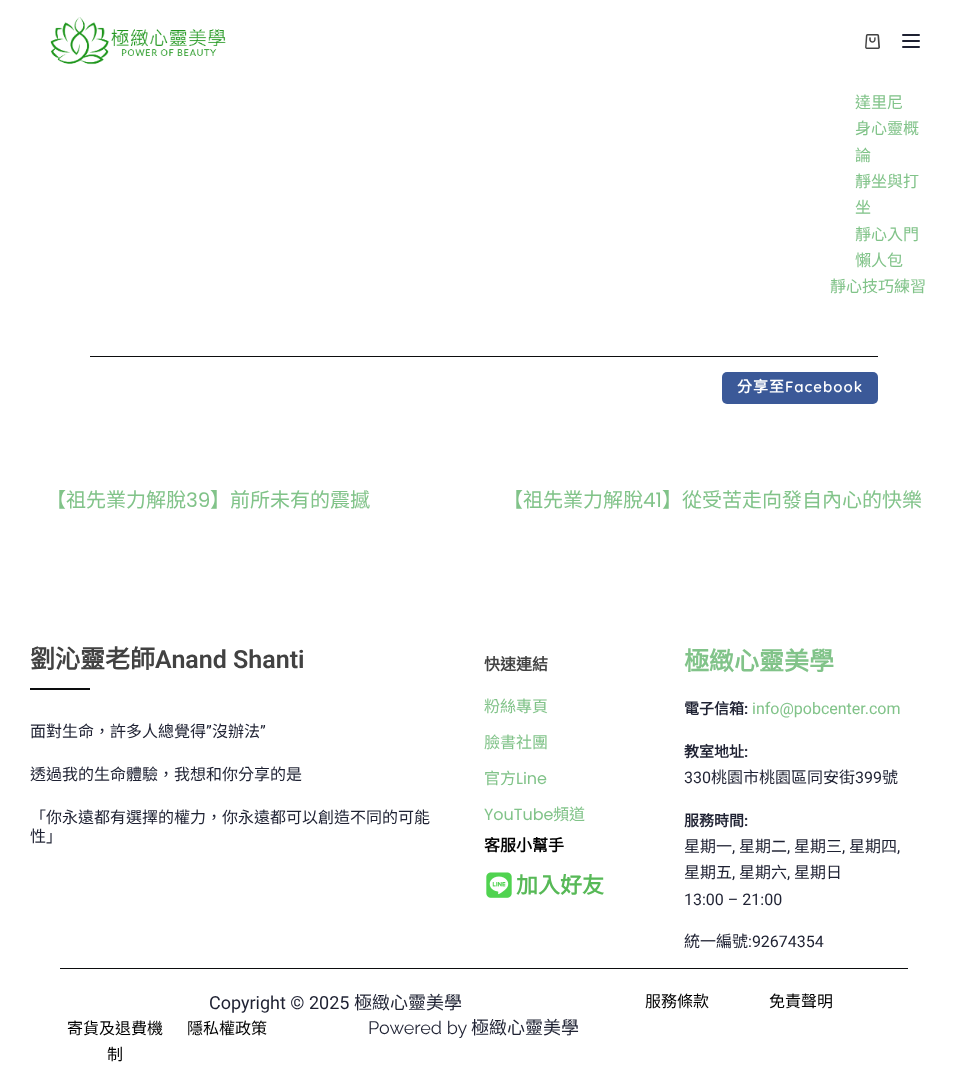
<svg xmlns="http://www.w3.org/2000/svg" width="968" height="1089">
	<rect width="100%" height="100%" fill="#FFFFFF" />
	<image x="50" y="17" width="176" height="48" href="assets/img1.png" />
	<image x="865" y="34" width="15" height="15" href="assets/img2.png" />
	<rect x="902" y="34" width="18" height="2" rx="1" fill="#1E2132" />
	<rect x="902" y="40" width="18" height="2" rx="1" fill="#1E2132" />
	<rect x="902" y="46" width="18" height="2" rx="1" fill="#1E2132" />
	<g font-family="Noto Sans CJK TC" font-size="16" fill="#81C389">
		<text x="855" y="108">達里尼</text>
		<text x="855" y="134">身心靈概</text>
		<text x="855" y="161">論</text>
		<text x="855" y="187">靜坐與打</text>
		<text x="855" y="213">坐</text>
		<text x="855" y="240">靜心入門</text>
		<text x="855" y="266">懶人包</text>
		<text x="830" y="292">靜心技巧練習</text>
	</g>
	<rect x="90" y="356" width="788" height="1" fill="#0C0D0E" />
	<rect x="722" y="372" width="156" height="32" rx="5" fill="#3B5998" />
	<text x="737" y="392" font-family="Noto Sans CJK TC" font-size="15" font-weight="700" letter-spacing="1" fill="#FFFFFF">分享至</text>
	<text x="785" y="392" font-family="Quicksand" font-size="15" font-weight="600" letter-spacing="1" fill="#FFFFFF">Facebook</text>
	<text x="46" y="507" font-family="Noto Sans CJK TC" font-size="20" fill="#81C389">【祖先業力解脫</text>
	<text x="186" y="507" font-family="Poppins" font-size="20" fill="#81C389">39</text>
	<g font-family="Noto Sans CJK TC" font-size="20" fill="#81C389">
		<text x="210" y="507">】前所未有的震撼</text>
		<text x="503" y="507">【祖先業力解脫</text>
	</g>
	<text x="643" y="507" font-family="Poppins" font-size="20" fill="#81C389">41</text>
	<text x="662" y="507" font-family="Noto Sans CJK TC" font-size="20" fill="#81C389">】從受苦走向發自內心的快樂</text>
	<text x="30" y="668" font-family="Noto Sans CJK TC" font-size="25" font-weight="700" fill="#424242">劉沁靈老師</text>
	<text x="155" y="668" font-family="Roboto" font-size="25" font-weight="600" fill="#424242">Anand Shanti</text>
	<rect x="30" y="688" width="60" height="2" fill="#0C0D0E" />
	<text x="30" y="737" font-family="Noto Sans CJK TC" font-size="16" fill="#1E2132">面對生命，許多人總覺得</text>
	<text x="206" y="737" font-family="Roboto" font-size="16" fill="#1E2132">”</text>
	<text x="212" y="737" font-family="Noto Sans CJK TC" font-size="16" fill="#1E2132">沒辦法</text>
	<text x="260" y="737" font-family="Roboto" font-size="16" fill="#1E2132">”</text>
	<g font-family="Noto Sans CJK TC" font-size="16" fill="#1E2132">
		<text x="30" y="780">透過我的生命體驗，我想和你分享的是</text>
		<text x="30" y="823">「你永遠都有選擇的權力，你永遠都可以創造不同的可能</text>
		<text x="30" y="842">性」</text>
	</g>
	<text x="484" y="670" font-family="Noto Sans CJK TC" font-size="16" font-weight="700" fill="#424242">快速連結</text>
	<g font-family="Noto Sans CJK TC" font-size="16" fill="#81C389">
		<text x="484" y="712">粉絲專頁</text>
		<text x="484" y="748">臉書社團</text>
		<text x="484" y="784">官方</text>
	</g>
	<g font-family="Poppins" font-size="16" fill="#81C389">
		<text x="516" y="784">Line</text>
		<text x="484" y="820">YouTube</text>
	</g>
	<text x="553" y="820" font-family="Noto Sans CJK TC" font-size="16" fill="#81C389">頻道</text>
	<text x="484" y="851" font-family="Noto Sans CJK TC" font-size="16" font-weight="700" fill="#000000">客服小幫手</text>
	<image x="486" y="872" width="26" height="26" href="assets/img3.png" />
	<text x="516" y="893" font-family="Noto Sans CJK TC" font-size="22" font-weight="700" fill="#57B957">加入好友</text>
	<text x="684" y="670" font-family="Noto Sans CJK TC" font-size="25" font-weight="700" fill="#81C389">極緻心靈美學</text>
	<text x="684" y="714" font-family="Noto Sans CJK TC" font-size="15" font-weight="700" fill="#1E2132">電子信箱</text>
	<text x="744" y="714" font-family="Roboto" font-size="15" font-weight="700" fill="#1E2132">:</text>
	<text x="752" y="714" font-family="Roboto" font-size="16" fill="#81C389">info@pobcenter.com</text>
	<text x="684" y="757" font-family="Noto Sans CJK TC" font-size="15" font-weight="700" fill="#1E2132">教室地址</text>
	<text x="744" y="757" font-family="Roboto" font-size="15" font-weight="700" fill="#1E2132">:</text>
	<text x="684" y="783" font-family="Roboto" font-size="16" fill="#1E2132">330</text>
	<text x="711" y="783" font-family="Noto Sans CJK TC" font-size="16" fill="#1E2132">桃園市桃園區同安街</text>
	<text x="855" y="783" font-family="Roboto" font-size="16" fill="#1E2132">399</text>
	<text x="882" y="783" font-family="Noto Sans CJK TC" font-size="16" fill="#1E2132">號</text>
	<text x="684" y="826" font-family="Noto Sans CJK TC" font-size="15" font-weight="700" fill="#1E2132">服務時間</text>
	<text x="744" y="826" font-family="Roboto" font-size="15" font-weight="700" fill="#1E2132">:</text>
	<text x="684" y="852" font-family="Noto Sans CJK TC" font-size="16" fill="#1E2132">星期一</text>
	<text x="732" y="852" font-family="Roboto" font-size="16" fill="#1E2132">,</text>
	<text x="739" y="852" font-family="Noto Sans CJK TC" font-size="16" fill="#1E2132">星期二</text>
	<text x="787" y="852" font-family="Roboto" font-size="16" fill="#1E2132">,</text>
	<text x="794" y="852" font-family="Noto Sans CJK TC" font-size="16" fill="#1E2132">星期三</text>
	<text x="842" y="852" font-family="Roboto" font-size="16" fill="#1E2132">,</text>
	<text x="849" y="852" font-family="Noto Sans CJK TC" font-size="16" fill="#1E2132">星期四</text>
	<text x="897" y="852" font-family="Roboto" font-size="16" fill="#1E2132">,</text>
	<text x="684" y="878" font-family="Noto Sans CJK TC" font-size="16" fill="#1E2132">星期五</text>
	<text x="732" y="878" font-family="Roboto" font-size="16" fill="#1E2132">,</text>
	<text x="739" y="878" font-family="Noto Sans CJK TC" font-size="16" fill="#1E2132">星期六</text>
	<text x="787" y="878" font-family="Roboto" font-size="16" fill="#1E2132">,</text>
	<text x="794" y="878" font-family="Noto Sans CJK TC" font-size="16" fill="#1E2132">星期日</text>
	<text x="684" y="905" font-family="Roboto" font-size="16" fill="#1E2132">13:00 – 21:00</text>
	<text x="684" y="947" font-family="Noto Sans CJK TC" font-size="16" fill="#1E2132">統一編號</text>
	<text x="748" y="947" font-family="Roboto" font-size="16" fill="#1E2132">:92674354</text>
	<rect x="60" y="968" width="848" height="1" fill="#0C0D0E" />
	<text x="209" y="1009" font-family="Roboto" font-size="18" fill="#1E2132">Copyright © 2025</text>
	<text x="354" y="1009" font-family="Noto Sans CJK TC" font-size="18" fill="#1E2132">極緻心靈美學</text>
	<g font-family="Noto Sans CJK TC" font-size="16" fill="#000000">
		<text x="645" y="1007">服務條款</text>
		<text x="769" y="1007">免責聲明</text>
		<text x="67" y="1034">寄貨及退費機</text>
		<text x="107" y="1060">制</text>
		<text x="187" y="1034">隱私權政策</text>
	</g>
	<text x="368" y="1034" font-family="Raleway" font-size="18" fill="#1E2132">Powered by</text>
	<text x="471" y="1034" font-family="Noto Sans CJK TC" font-size="18" fill="#1E2132">極緻心靈美學</text>
</svg>
